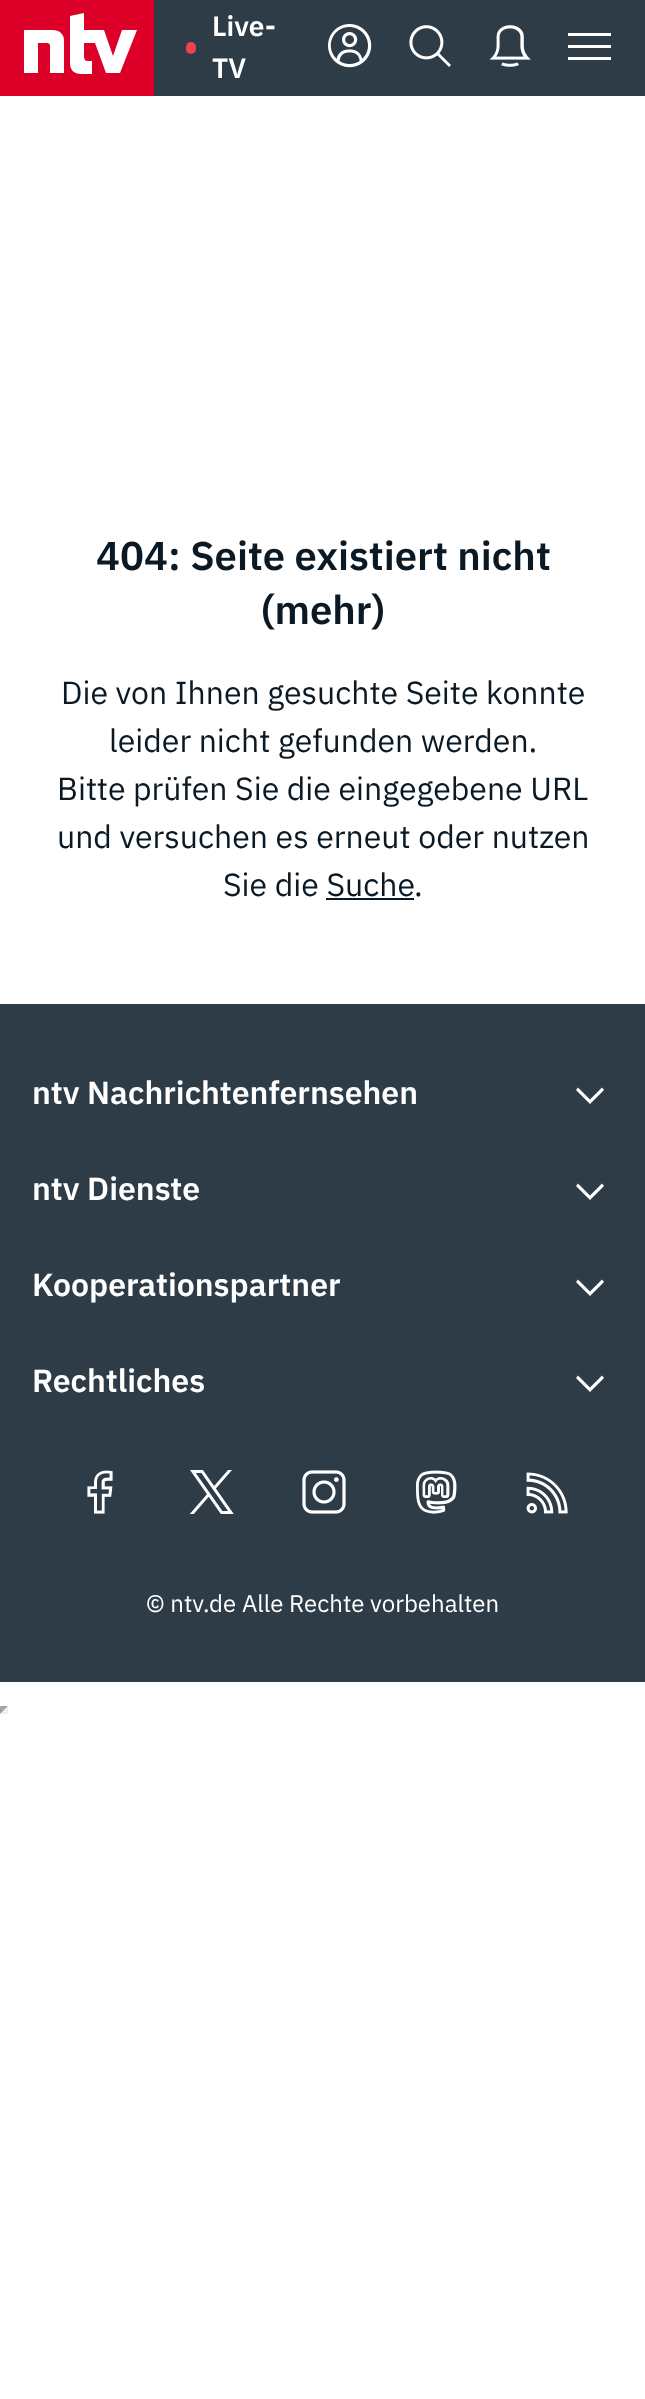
<svg xmlns="http://www.w3.org/2000/svg" width="645" height="2399">
	<rect width="100%" height="100%" fill="#FFFFFF" />
	<rect x="154" y="0" width="491" height="96" fill="#2D3C46" />
	<rect x="0" y="0" width="154" height="96" fill="#DC0028" />
	<path d="M53 30H24V73H38V43H47C49 43 50 44 50 46V73H64V40C64 34 59 30 53 30ZM122 30L113 56L104 30H84V13L70 16V63C70 70 74 74 81 74H92V61C86 61 84 62 84 55V43H95L106 73H120L137 30Z" fill="#FFFFFF" />
	<rect x="186" y="42" width="10" height="12" rx="5" fill="#F2414A" />
	<g font-family="IBM Plex Sans" font-size="28" font-weight="600" fill="#FFFFFF">
		<text x="212" y="36">Live-</text>
		<text x="212" y="78">TV</text>
	</g>
	<image x="328" y="24" width="44" height="44" href="assets/img1.png" />
	<image x="409" y="25" width="42" height="42" href="assets/img2.png" />
	<image x="489" y="25" width="42" height="42" href="assets/img3.png" />
	<path d="M611 33H568V36H611ZM611 57H568V60H611ZM568 45H611V48H568Z" fill="#FFFFFF" />
	<g font-family="IBM Plex Sans" font-size="40" font-weight="600" fill="#0A1924">
		<text x="96" y="570">404: Seite existiert nicht</text>
		<text x="261" y="624">(mehr)</text>
	</g>
	<g font-family="IBM Plex Sans" font-size="32" fill="#0A1924">
		<text x="61" y="704">Die von Ihnen gesuchte Seite konnte</text>
		<text x="109" y="752">leider nicht gefunden werden.</text>
		<text x="57" y="800">Bitte prüfen Sie die eingegebene URL</text>
		<text x="57" y="848">und versuchen es erneut oder nutzen</text>
		<text x="223" y="896">Sie die Suche</text>
		<text x="414" y="896">.</text>
	</g>
	<rect x="326" y="898" width="88" height="2" fill="#0A1924" />
	<rect x="0" y="1004" width="645" height="678" fill="#2D3C46" />
	<text x="32" y="1104" font-family="IBM Plex Sans" font-size="32" font-weight="600" fill="#FFFFFF">ntv Nachrichtenfernsehen</text>
	<path d="M590 1104L576 1090L578 1087.5L590 1099.5L602 1087.5L604 1090Z" fill="#FFFFFF" />
	<text x="32" y="1200" font-family="IBM Plex Sans" font-size="32" font-weight="600" fill="#FFFFFF">ntv Dienste</text>
	<path d="M590 1200L576 1186L578 1183.5L590 1195.5L602 1183.5L604 1186Z" fill="#FFFFFF" />
	<text x="32" y="1296" font-family="IBM Plex Sans" font-size="32" font-weight="600" fill="#FFFFFF">Kooperationspartner</text>
	<path d="M590 1296L576 1282L578 1279.5L590 1291.5L602 1279.5L604 1282Z" fill="#FFFFFF" />
	<text x="32" y="1392" font-family="IBM Plex Sans" font-size="32" font-weight="600" fill="#FFFFFF">Rechtliches</text>
	<path d="M590 1392L576 1378L578 1375.5L590 1387.5L602 1375.5L604 1378Z" fill="#FFFFFF" />
	<image x="87" y="1470" width="26" height="44" href="assets/img4.png" />
	<image x="189" y="1470" width="45" height="44" href="assets/img5.png" />
	<image x="302" y="1470" width="44" height="44" href="assets/img6.png" />
	<image x="416" y="1470" width="41" height="44" href="assets/img7.png" />
	<image x="526" y="1472" width="42" height="42" href="assets/img8.png" />
	<text x="146" y="1612" font-family="IBM Plex Sans" font-size="24" fill="#FFFFFF">© ntv.de Alle Rechte vorbehalten</text>
	<path d="M0 1706H8L4 1710Z" fill="#9F9F9F" />
	<path d="M8 1706V1714L4 1710Z" fill="#EEEEEE" />
	<path d="M8 1714H0L4 1710Z" fill="#EEEEEE" />
	<path d="M0 1714V1706L4 1710Z" fill="#9F9F9F" />
</svg>
